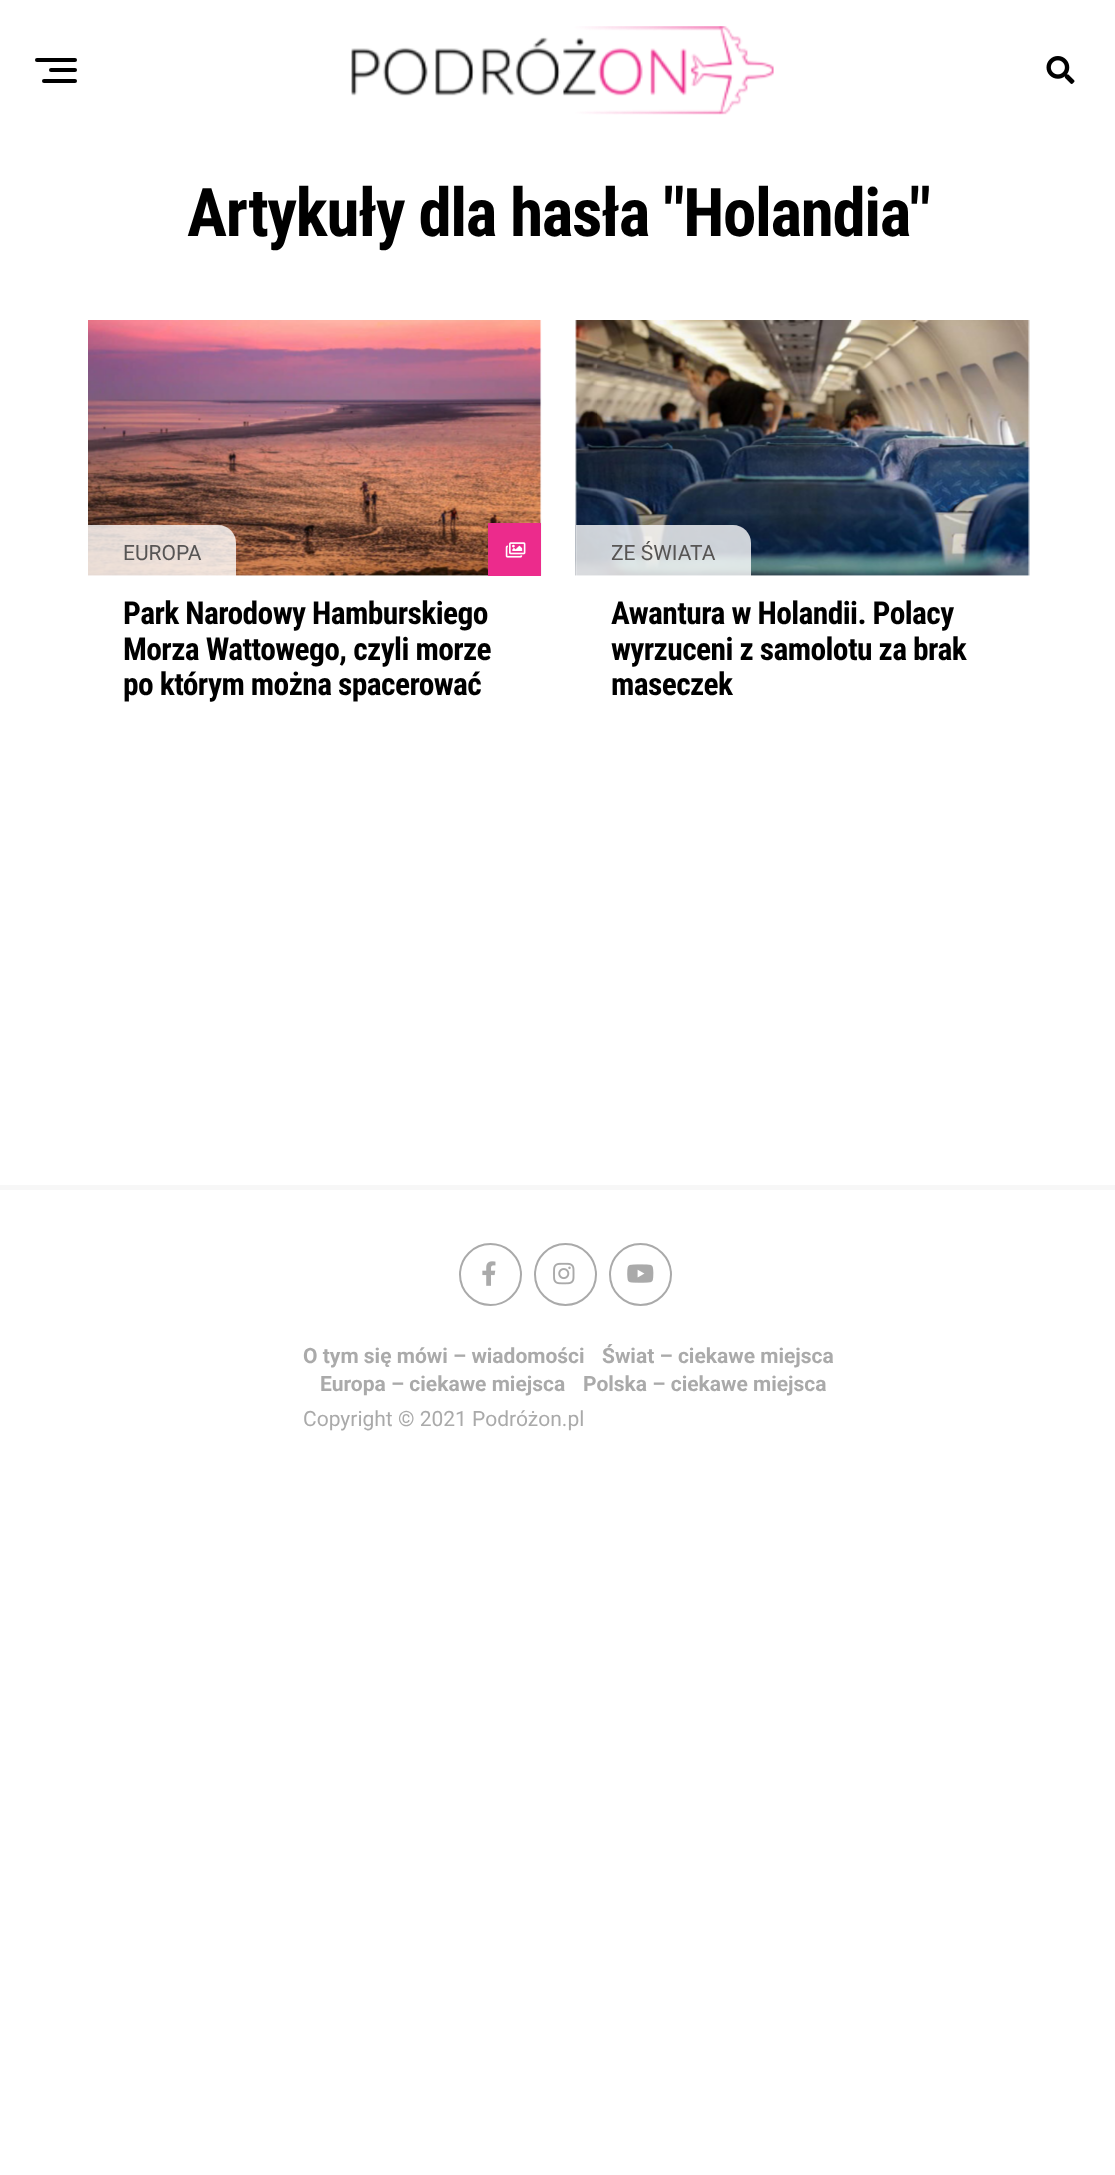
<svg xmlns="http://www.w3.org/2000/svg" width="1115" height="2175">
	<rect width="100%" height="100%" fill="#FFFFFF" />
	<rect x="35" y="58" width="42" height="4" rx="2" fill="#000000" />
	<rect x="49" y="68" width="28" height="4" rx="2" fill="#000000" />
	<rect x="42" y="79" width="35" height="4" rx="2" fill="#000000" />
	<image x="351" y="26" width="423" height="89" href="assets/img1.png" />
	<image x="1046" y="56" width="29" height="28" href="assets/img2.png" />
	<text x="187" y="236" font-family="Roboto Condensed" font-size="67" font-weight="700" letter-spacing="-1.35" fill="#000000">Artykuły dla hasła "Holandia"</text>
	<image x="88" y="320" width="454" height="256" href="assets/img3.png" />
	<rect x="488" y="523" width="53" height="53" fill="#EC2B8C" />
	<image x="505" y="542" width="21" height="16" href="assets/img4.png" />
	<path d="M88 525H218C228 525 236 533 236 543V579H88Z" fill="#FFFFFF" fill-opacity="0.8" />
	<text x="123" y="560" font-family="Roboto" font-size="21" fill="#575554">EUROPA</text>
	<g font-family="Roboto Condensed" font-size="31.5" font-weight="700" letter-spacing="-0.6" fill="#000000">
		<text x="123" y="624">Park Narodowy Hamburskiego</text>
		<text x="123" y="660">Morza Wattowego, czyli morze</text>
		<text x="123" y="695">po którym można spacerować</text>
	</g>
	<image x="575" y="320" width="455" height="256" href="assets/img5.png" />
	<path d="M576 525H733C743 525 751 533 751 543V579H576Z" fill="#FFFFFF" fill-opacity="0.8" />
	<text x="611" y="560" font-family="Roboto" font-size="21" fill="#575554">ZE ŚWIATA</text>
	<g font-family="Roboto Condensed" font-size="31.5" font-weight="700" letter-spacing="-0.6" fill="#000000">
		<text x="611" y="624">Awantura w Holandii. Polacy</text>
		<text x="611" y="660">wyrzuceni z samolotu za brak</text>
		<text x="611" y="695">maseczek</text>
	</g>
	<rect x="0" y="1185" width="1115" height="5" fill="#F7F7F7" />
	<circle cx="490.5" cy="1274.5" r="30.5" fill="none" stroke="#AAAAAA" stroke-width="2" />
	<image x="482" y="1261" width="14" height="25" href="assets/img6.png" />
	<circle cx="565.5" cy="1274.5" r="30.5" fill="none" stroke="#AAAAAA" stroke-width="2" />
	<image x="553" y="1262" width="22" height="23" href="assets/img7.png" />
	<circle cx="640.5" cy="1274.5" r="30.5" fill="none" stroke="#AAAAAA" stroke-width="2" />
	<image x="627" y="1264" width="27" height="19" href="assets/img8.png" />
	<g font-family="Roboto" font-size="21" font-weight="700" fill="#AAAAAA">
		<text x="303" y="1363">O tym się mówi – wiadomości</text>
		<text x="602" y="1363">Świat – ciekawe miejsca</text>
		<text x="320" y="1391">Europa – ciekawe miejsca</text>
		<text x="583" y="1391">Polska – ciekawe miejsca</text>
	</g>
	<text x="303" y="1426" font-family="Roboto" font-size="21" fill="#AAAAAA">Copyright © 2021 Podróżon.pl</text>
</svg>
